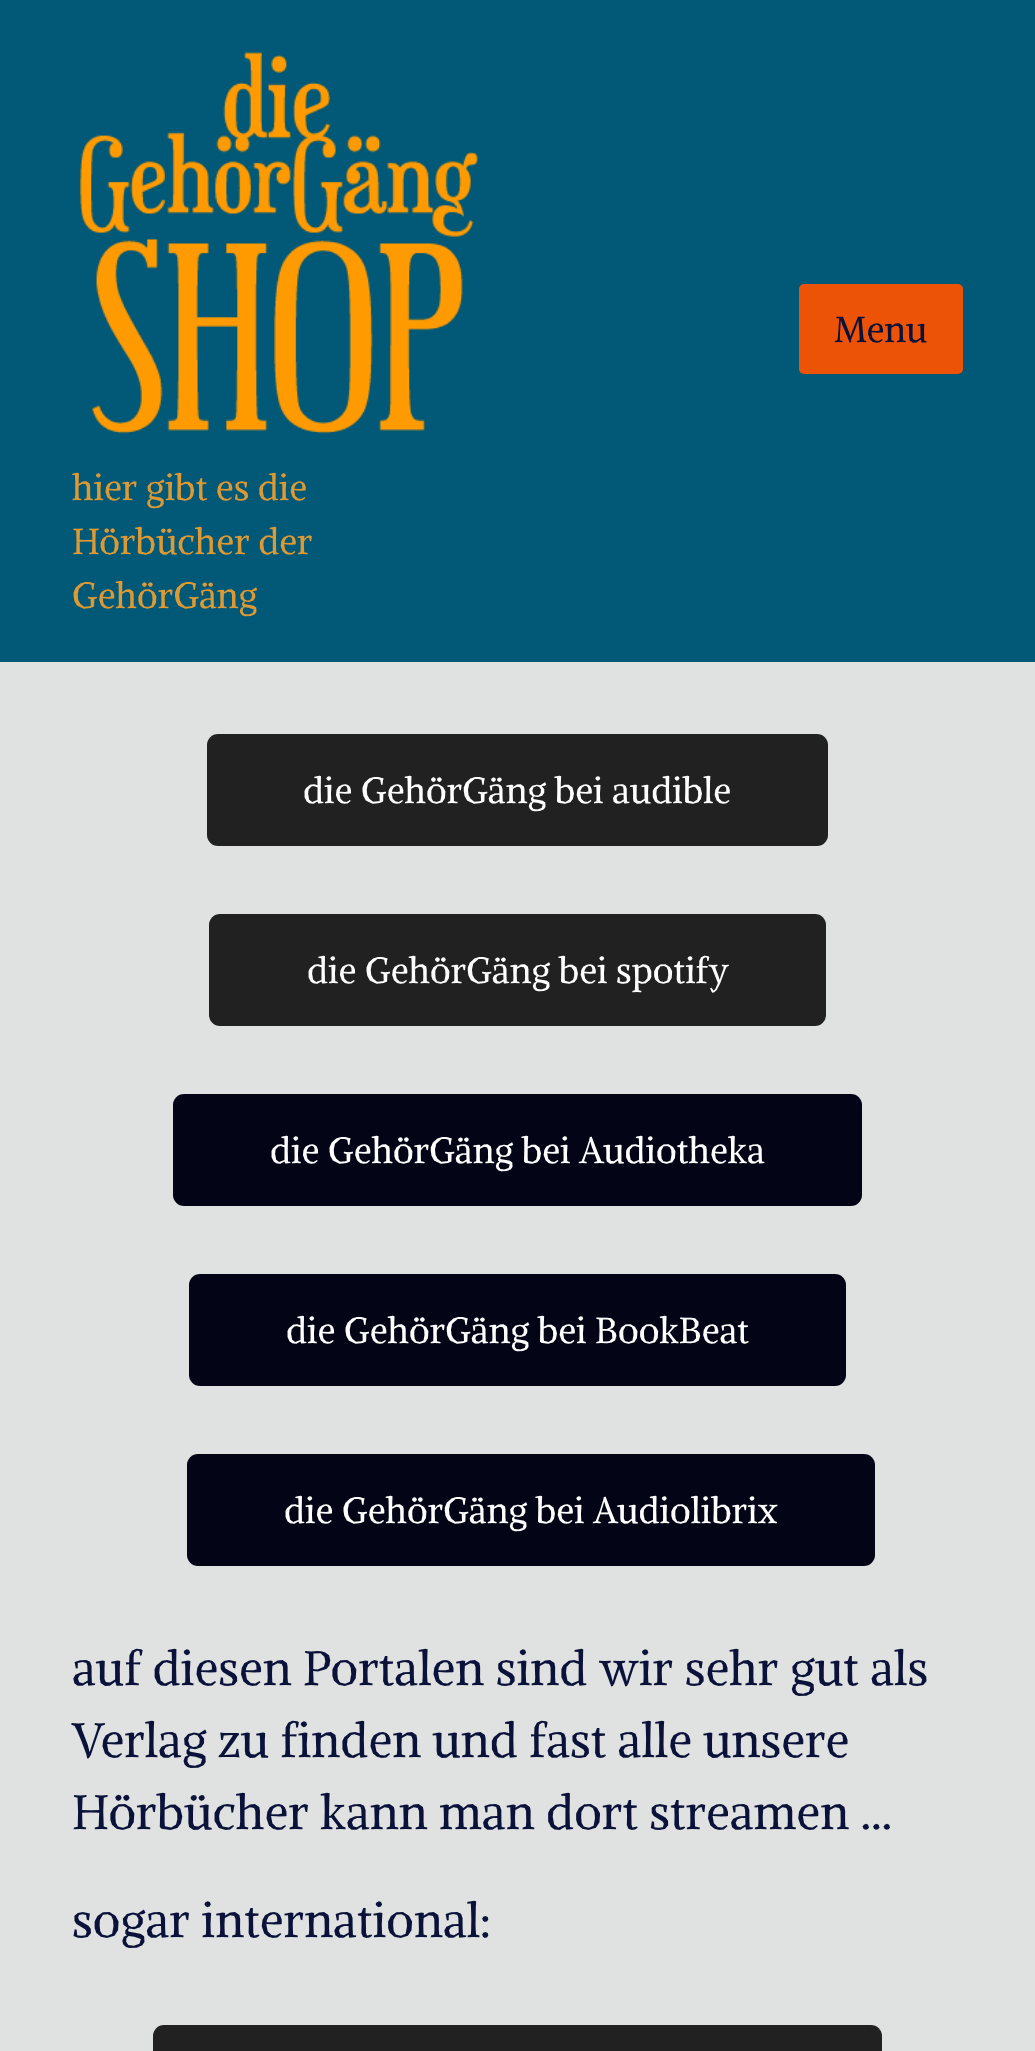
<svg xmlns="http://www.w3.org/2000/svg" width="1035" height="2051">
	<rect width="100%" height="100%" fill="#E0E2E2" />
	<rect x="0" y="0" width="1035" height="662" fill="#015877" />
	<rect x="799" y="284" width="164" height="90" rx="5" fill="#ED5307" />
	<text x="834" y="342" font-family="Alike Angular" font-size="36" fill="#0B123A">Menu</text>
	<image x="80" y="52" width="398" height="382" href="assets/img1.png" />
	<g font-family="Alike Angular" font-size="36" fill="#DD9933">
		<text x="72" y="500">hier gibt es die</text>
		<text x="72" y="554">Hörbücher der</text>
		<text x="72" y="608">GehörGäng</text>
	</g>
	<rect x="207" y="734" width="621" height="112" rx="11" fill="#212121" />
	<text x="303" y="803" font-family="Alike Angular" font-size="36" fill="#FFFFFF">die GehörGäng bei audible</text>
	<rect x="209" y="914" width="617" height="112" rx="11" fill="#212121" />
	<text x="307" y="983" font-family="Alike Angular" font-size="36" fill="#FFFFFF">die GehörGäng bei spotify</text>
	<rect x="173" y="1094" width="689" height="112" rx="11" fill="#030517" />
	<text x="270" y="1163" font-family="Alike Angular" font-size="36" fill="#FFFFFF">die GehörGäng bei Audiotheka</text>
	<rect x="189" y="1274" width="657" height="112" rx="11" fill="#030517" />
	<text x="286" y="1343" font-family="Alike Angular" font-size="36" fill="#FFFFFF">die GehörGäng bei BookBeat</text>
	<rect x="187" y="1454" width="688" height="112" rx="11" fill="#030517" />
	<text x="284" y="1523" font-family="Alike Angular" font-size="36" fill="#FFFFFF">die GehörGäng bei Audiolibrix</text>
	<g font-family="Alike Angular" font-size="48" fill="#0B123A">
		<text x="72" y="1685">auf diesen Portalen sind wir sehr gut als</text>
		<text x="72" y="1757">Verlag zu finden und fast alle unsere</text>
		<text x="72" y="1829">Hörbücher kann man dort streamen ...</text>
		<text x="72" y="1937">sogar international:</text>
	</g>
	<rect x="153" y="2025" width="729" height="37" rx="11" fill="#212121" />
</svg>
